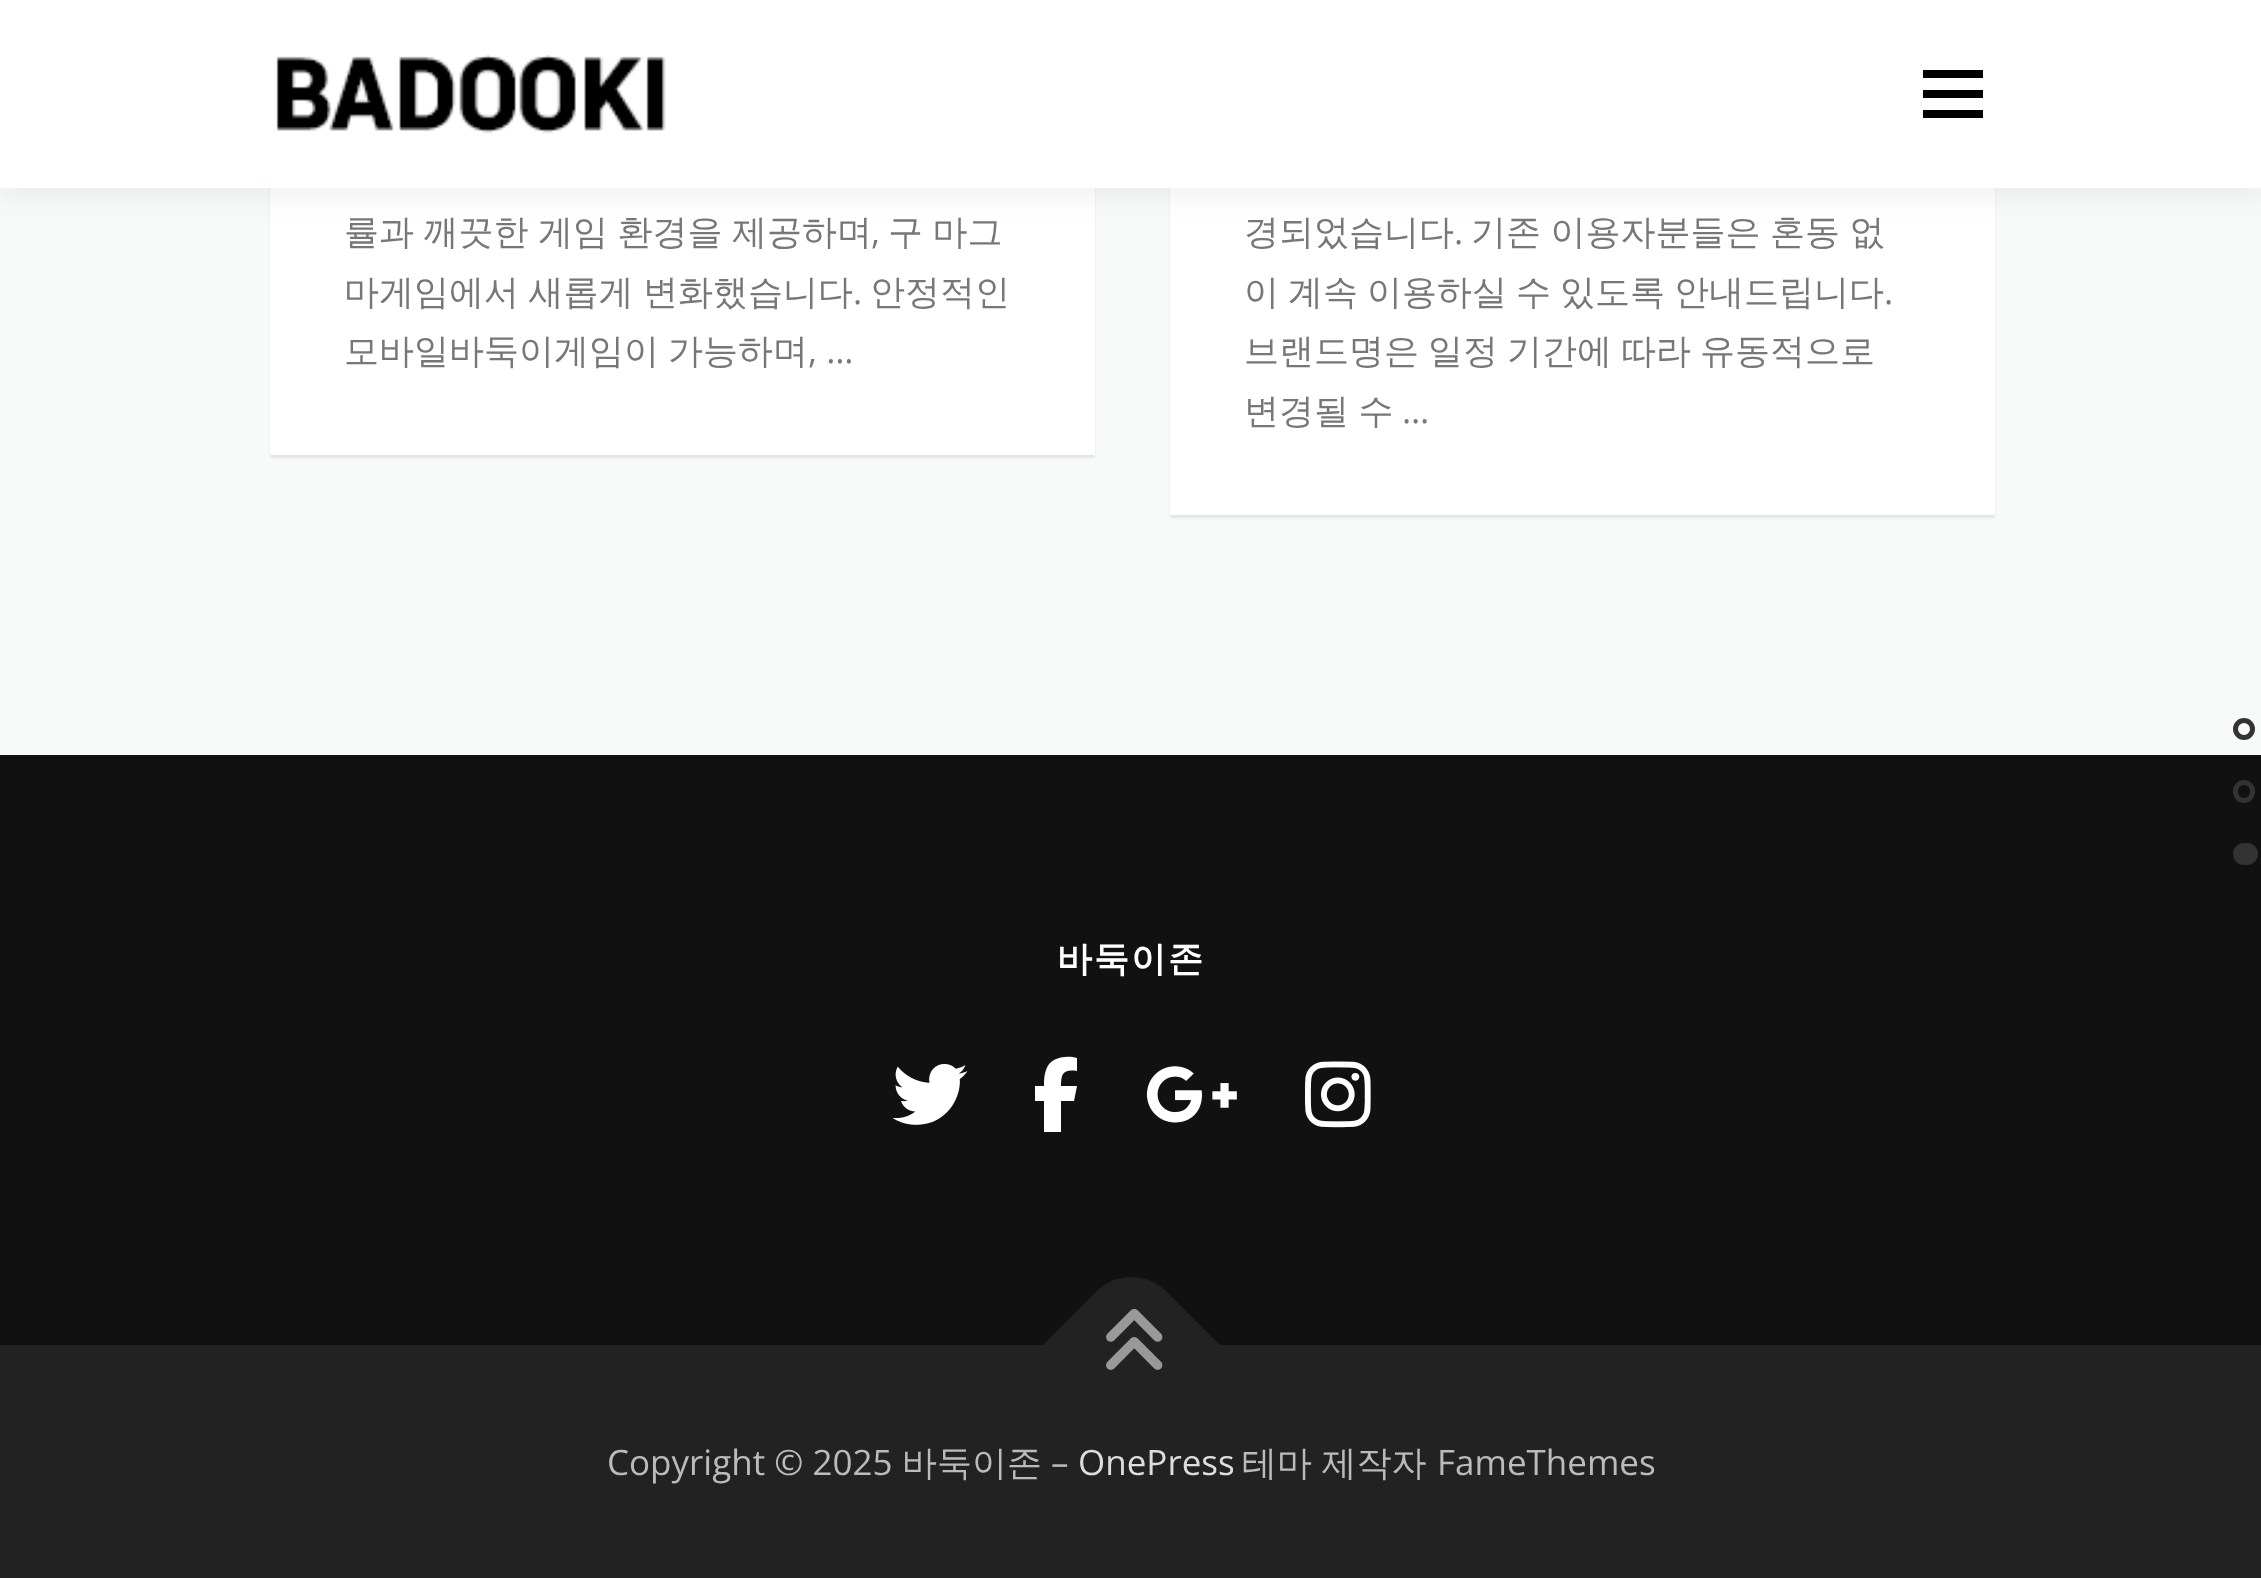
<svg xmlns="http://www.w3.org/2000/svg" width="2261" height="1578">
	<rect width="100%" height="100%" fill="#111111" />
	<rect x="0" y="188" width="2261" height="567" fill="#F8F9F9" />
	<rect x="270" y="-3" width="825" height="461" fill="#000000" fill-opacity="0.08" filter="blur(1px)" />
	<rect x="270" y="188" width="825" height="267" fill="#FFFFFF" />
	<rect x="1170" y="-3" width="825" height="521" fill="#000000" fill-opacity="0.08" filter="blur(1px)" />
	<rect x="1170" y="188" width="825" height="327" fill="#FFFFFF" />
	<rect x="0" y="13" width="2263" height="187" fill="#323232" fill-opacity="0.06" filter="blur(12.5px)" />
	<rect x="0" y="0" width="2261" height="188" fill="#FFFFFF" />
	<image x="276" y="54" width="390" height="80" href="assets/img1.png" />
	<rect x="1923" y="90" width="60" height="8" fill="#000000" />
	<rect x="1923" y="70" width="60" height="8" fill="#000000" />
	<rect x="1923" y="110" width="60" height="8" fill="#000000" />
	<text x="344" y="244" word-spacing="-1" font-family="WenQuanYi Zen Hei" font-size="35" font-weight="500" fill="#777777">률과 깨끗한 게임 환경을 제공하며</text>
	<text x="871" y="244" font-family="Open Sans" font-size="35" fill="#777777">,</text>
	<g font-family="WenQuanYi Zen Hei" font-size="35" font-weight="500" fill="#777777">
		<text x="888" y="244" word-spacing="-1">구 마그</text>
		<text x="344" y="304" word-spacing="-1">마게임에서 새롭게 변화했습니다</text>
	</g>
	<text x="853" y="304" font-family="Open Sans" font-size="35" fill="#777777">.</text>
	<g font-family="WenQuanYi Zen Hei" font-size="35" font-weight="500" fill="#777777">
		<text x="870" y="304">안정적인</text>
		<text x="344" y="363">모바일바둑이게임이</text>
		<text x="668" y="363">가능하며</text>
	</g>
	<text x="808" y="363" font-family="Open Sans" font-size="35" fill="#777777">, …</text>
	<text x="1244" y="244" font-family="WenQuanYi Zen Hei" font-size="35" font-weight="500" fill="#777777">경되었습니다</text>
	<text x="1454" y="244" font-family="Open Sans" font-size="35" fill="#777777">.</text>
	<g font-family="WenQuanYi Zen Hei" font-size="35" font-weight="500" fill="#777777">
		<text x="1471" y="244" word-spacing="-1">기존 이용자분들은 혼동 없</text>
		<text x="1244" y="304" word-spacing="-1.5">이 계속 이용하실 수 있도록 안내드립니다</text>
	</g>
	<text x="1884" y="304" font-family="Open Sans" font-size="35" fill="#777777">.</text>
	<g font-family="WenQuanYi Zen Hei" font-size="35" font-weight="500" fill="#777777">
		<text x="1244" y="363" word-spacing="-1.5">브랜드명은 일정 기간에 따라 유동적으로</text>
		<text x="1244" y="423" word-spacing="-1">변경될 수</text>
	</g>
	<text x="1402" y="423" font-family="Open Sans" font-size="35" fill="#777777">…</text>
	<text x="1057" y="971" font-family="WenQuanYi Zen Hei" font-size="35" font-weight="700" letter-spacing="2" fill="#FFFFFF">바둑이존</text>
	<image x="892" y="1063" width="76" height="62" href="assets/img2.png" />
	<path d="M1044 1101V1132V1101V1132H1061V1101H1074L1077 1086H1061C1061 1074 1063 1069 1077 1071V1058C1066 1055 1050 1057 1046 1070C1044 1075 1044 1081 1044 1086H1035V1101Z" fill="#FFFFFF" />
	<image x="1146" y="1066" width="91" height="57" href="assets/img3.png" />
	<image x="1305" y="1061" width="66" height="67" href="assets/img4.png" />
	<rect x="0" y="1345" width="2261" height="233" fill="#222222" />
	<path d="M1043 1345L1096 1292C1115 1272 1147 1272 1167 1292L1220 1345L1131 1433Z" fill="#222222" />
	<image x="1106" y="1308" width="57" height="62" href="assets/img5.png" />
	<text x="607" y="1475" font-family="Open Sans" font-size="35" fill="#BBBBBB">Copyright © 2025</text>
	<text x="902" y="1475" font-family="WenQuanYi Zen Hei" font-size="35" font-weight="500" fill="#BBBBBB">바둑이존</text>
	<text x="1051" y="1475" font-family="Open Sans" font-size="35" fill="#BBBBBB">–</text>
	<text x="1078" y="1475" font-family="Open Sans" font-size="35" fill="#DDDDDD">OnePress</text>
	<text x="1242" y="1475" word-spacing="-1" font-family="WenQuanYi Zen Hei" font-size="35" font-weight="500" fill="#BBBBBB">테마 제작자</text>
	<text x="1437" y="1475" font-family="Open Sans" font-size="35" fill="#BBBBBB">FameThemes</text>
	<circle cx="2244" cy="729" r="8.5" fill="none" stroke="#333333" stroke-width="5" />
	<rect x="2235.5" y="782.5" width="17" height="18" rx="8.5" fill="none" stroke="#333333" stroke-width="5" />
	<rect x="2235" y="843" width="23" height="22" rx="11" fill="#333333" />
	<circle cx="2244" cy="854" r="8.5" fill="none" stroke="#333333" stroke-width="5" />
</svg>
